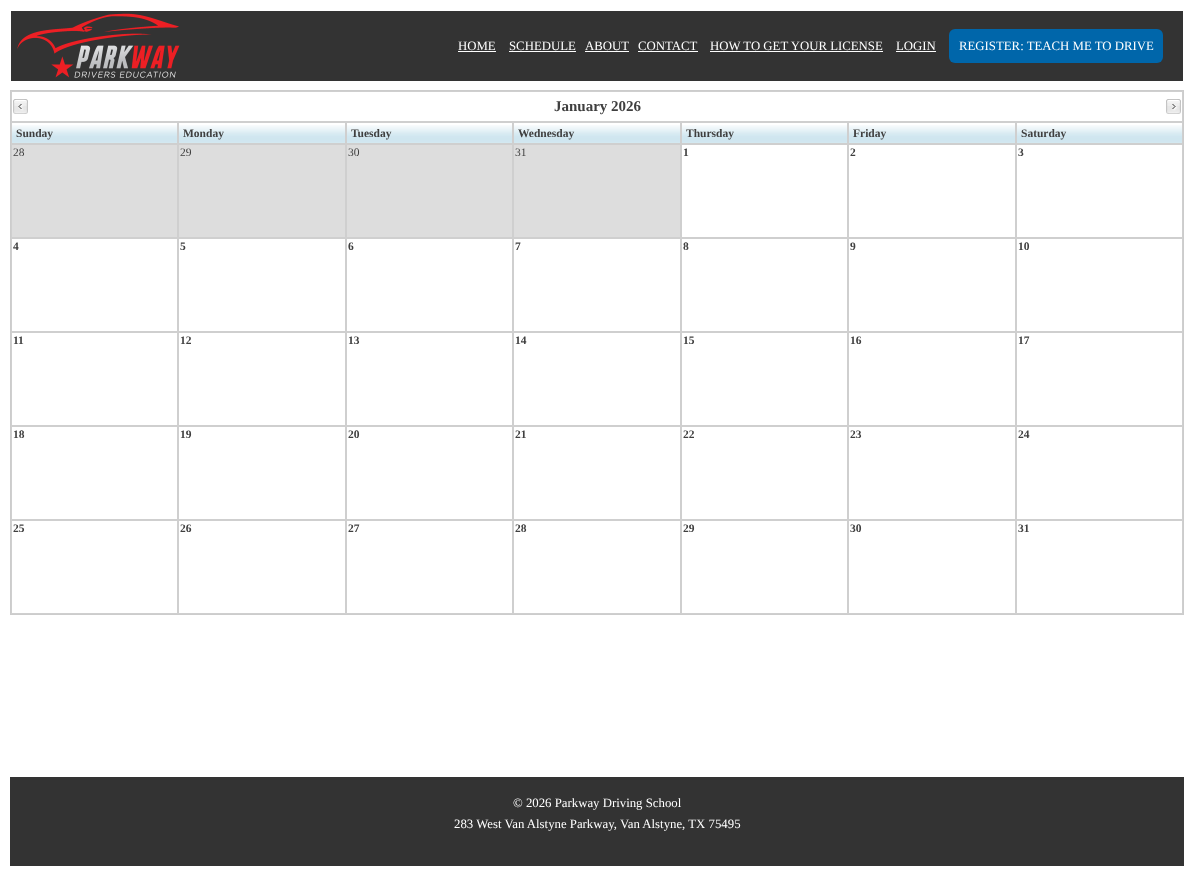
<svg xmlns="http://www.w3.org/2000/svg" width="1194" height="879">
	<rect width="100%" height="100%" fill="#FFFFFF" />
	<rect x="11" y="11" width="1172" height="70" fill="#333333" />
	<image x="17" y="13" width="163" height="65" href="assets/img1.png" />
	<text x="458" y="50" font-family="Liberation Serif" font-size="12.8" fill="#FFFFFF">HOME</text>
	<rect x="458" y="51" width="38" height="1" fill="#FFFFFF" />
	<text x="509" y="50" font-family="Liberation Serif" font-size="12.8" fill="#FFFFFF">SCHEDULE</text>
	<rect x="509" y="51" width="67" height="1" fill="#FFFFFF" />
	<text x="585" y="50" font-family="Liberation Serif" font-size="12.8" fill="#FFFFFF">ABOUT</text>
	<rect x="585" y="51" width="44" height="1" fill="#FFFFFF" />
	<text x="638" y="50" font-family="Liberation Serif" font-size="12.8" fill="#FFFFFF">CONTACT</text>
	<rect x="638" y="51" width="60" height="1" fill="#FFFFFF" />
	<text x="710" y="50" font-family="Liberation Serif" font-size="12.8" fill="#FFFFFF">HOW TO GET YOUR LICENSE</text>
	<rect x="710" y="51" width="173" height="1" fill="#FFFFFF" />
	<text x="896" y="50" font-family="Liberation Serif" font-size="12.8" fill="#FFFFFF">LOGIN</text>
	<rect x="896" y="51" width="40" height="1" fill="#FFFFFF" />
	<rect x="949" y="29" width="214" height="34" rx="6" fill="#0066AA" />
	<text x="959" y="50" font-family="Liberation Serif" font-size="12.8" fill="#FFFFFF">REGISTER: TEACH ME TO DRIVE</text>
	<rect x="10.5" y="90.5" width="1173" height="524" fill="none" stroke="#CCCCCC" />
	<rect x="11" y="91" width="1172" height="1" fill="#CFCFCF" />
	<rect x="11" y="121" width="1005" height="1" fill="#CFCFCF" />
	<rect x="11" y="91" width="1" height="31" fill="#CFCFCF" />
	<image x="13" y="99" width="15" height="15" href="assets/img2.png" />
	<text x="554" y="111" font-family="Liberation Serif" font-size="15" font-weight="700" fill="#3F3F3F">January 2026</text>
	<rect x="1182" y="91" width="1" height="31" fill="#CFCFCF" />
	<rect x="1016" y="121" width="167" height="1" fill="#CFCFCF" />
	<image x="1166" y="99" width="15" height="15" href="assets/img3.png" />
	<image x="12" y="125" width="165" height="18" href="assets/img4.png" />
	<rect x="11.5" y="122.5" width="166" height="21" fill="none" stroke="#CFCFCF" />
	<text x="16" y="137" font-family="Liberation Serif" font-size="11.5" font-weight="700" fill="#3F3F3F">Sunday</text>
	<image x="179" y="125" width="166" height="18" href="assets/img5.png" />
	<rect x="178.5" y="122.5" width="167" height="21" fill="none" stroke="#CFCFCF" />
	<text x="183" y="137" font-family="Liberation Serif" font-size="11.5" font-weight="700" fill="#3F3F3F">Monday</text>
	<image x="347" y="125" width="165" height="18" href="assets/img4.png" />
	<rect x="346.5" y="122.5" width="166" height="21" fill="none" stroke="#CFCFCF" />
	<text x="351" y="137" font-family="Liberation Serif" font-size="11.5" font-weight="700" fill="#3F3F3F">Tuesday</text>
	<image x="514" y="125" width="166" height="18" href="assets/img5.png" />
	<rect x="513.5" y="122.5" width="167" height="21" fill="none" stroke="#CFCFCF" />
	<text x="518" y="137" font-family="Liberation Serif" font-size="11.5" font-weight="700" fill="#3F3F3F">Wednesday</text>
	<image x="682" y="125" width="165" height="18" href="assets/img4.png" />
	<rect x="681.5" y="122.5" width="166" height="21" fill="none" stroke="#CFCFCF" />
	<text x="686" y="137" font-family="Liberation Serif" font-size="11.5" font-weight="700" fill="#3F3F3F">Thursday</text>
	<image x="849" y="125" width="166" height="18" href="assets/img5.png" />
	<rect x="848.5" y="122.5" width="167" height="21" fill="none" stroke="#CFCFCF" />
	<text x="853" y="137" font-family="Liberation Serif" font-size="11.5" font-weight="700" fill="#3F3F3F">Friday</text>
	<image x="1017" y="125" width="165" height="18" href="assets/img4.png" />
	<rect x="1016.5" y="122.5" width="166" height="21" fill="none" stroke="#CFCFCF" />
	<text x="1021" y="137" font-family="Liberation Serif" font-size="11.5" font-weight="700" fill="#3F3F3F">Saturday</text>
	<rect x="11.5" y="144.5" width="166" height="93" fill="#DDDDDD" stroke="#CFCFCF" />
	<text x="13" y="156" font-family="Liberation Serif" font-size="11.5" fill="#3F3F3F">28</text>
	<rect x="178.5" y="144.5" width="167" height="93" fill="#DDDDDD" stroke="#CFCFCF" />
	<text x="180" y="156" font-family="Liberation Serif" font-size="11.5" fill="#3F3F3F">29</text>
	<rect x="346.5" y="144.5" width="166" height="93" fill="#DDDDDD" stroke="#CFCFCF" />
	<text x="348" y="156" font-family="Liberation Serif" font-size="11.5" fill="#3F3F3F">30</text>
	<rect x="513.5" y="144.5" width="167" height="93" fill="#DDDDDD" stroke="#CFCFCF" />
	<text x="515" y="156" font-family="Liberation Serif" font-size="11.5" fill="#3F3F3F">31</text>
	<rect x="681.5" y="144.5" width="166" height="93" fill="none" stroke="#CFCFCF" />
	<text x="683" y="156" font-family="Liberation Serif" font-size="11.5" font-weight="700" fill="#3F3F3F">1</text>
	<rect x="848.5" y="144.5" width="167" height="93" fill="none" stroke="#CFCFCF" />
	<text x="850" y="156" font-family="Liberation Serif" font-size="11.5" font-weight="700" fill="#3F3F3F">2</text>
	<rect x="1016.5" y="144.5" width="166" height="93" fill="none" stroke="#CFCFCF" />
	<text x="1018" y="156" font-family="Liberation Serif" font-size="11.5" font-weight="700" fill="#3F3F3F">3</text>
	<rect x="11.5" y="238.5" width="166" height="93" fill="none" stroke="#CFCFCF" />
	<text x="13" y="250" font-family="Liberation Serif" font-size="11.5" font-weight="700" fill="#3F3F3F">4</text>
	<rect x="178.5" y="238.5" width="167" height="93" fill="none" stroke="#CFCFCF" />
	<text x="180" y="250" font-family="Liberation Serif" font-size="11.5" font-weight="700" fill="#3F3F3F">5</text>
	<rect x="346.5" y="238.5" width="166" height="93" fill="none" stroke="#CFCFCF" />
	<text x="348" y="250" font-family="Liberation Serif" font-size="11.5" font-weight="700" fill="#3F3F3F">6</text>
	<rect x="513.5" y="238.5" width="167" height="93" fill="none" stroke="#CFCFCF" />
	<text x="515" y="250" font-family="Liberation Serif" font-size="11.5" font-weight="700" fill="#3F3F3F">7</text>
	<rect x="681.5" y="238.5" width="166" height="93" fill="none" stroke="#CFCFCF" />
	<text x="683" y="250" font-family="Liberation Serif" font-size="11.5" font-weight="700" fill="#3F3F3F">8</text>
	<rect x="848.5" y="238.5" width="167" height="93" fill="none" stroke="#CFCFCF" />
	<text x="850" y="250" font-family="Liberation Serif" font-size="11.5" font-weight="700" fill="#3F3F3F">9</text>
	<rect x="1016.5" y="238.5" width="166" height="93" fill="none" stroke="#CFCFCF" />
	<text x="1018" y="250" font-family="Liberation Serif" font-size="11.5" font-weight="700" fill="#3F3F3F">10</text>
	<rect x="11.5" y="332.5" width="166" height="93" fill="none" stroke="#CFCFCF" />
	<text x="13" y="344" font-family="Liberation Serif" font-size="11.5" font-weight="700" fill="#3F3F3F">11</text>
	<rect x="178.5" y="332.5" width="167" height="93" fill="none" stroke="#CFCFCF" />
	<text x="180" y="344" font-family="Liberation Serif" font-size="11.5" font-weight="700" fill="#3F3F3F">12</text>
	<rect x="346.5" y="332.5" width="166" height="93" fill="none" stroke="#CFCFCF" />
	<text x="348" y="344" font-family="Liberation Serif" font-size="11.5" font-weight="700" fill="#3F3F3F">13</text>
	<rect x="513.5" y="332.5" width="167" height="93" fill="none" stroke="#CFCFCF" />
	<text x="515" y="344" font-family="Liberation Serif" font-size="11.5" font-weight="700" fill="#3F3F3F">14</text>
	<rect x="681.5" y="332.5" width="166" height="93" fill="none" stroke="#CFCFCF" />
	<text x="683" y="344" font-family="Liberation Serif" font-size="11.5" font-weight="700" fill="#3F3F3F">15</text>
	<rect x="848.5" y="332.5" width="167" height="93" fill="none" stroke="#CFCFCF" />
	<text x="850" y="344" font-family="Liberation Serif" font-size="11.5" font-weight="700" fill="#3F3F3F">16</text>
	<rect x="1016.5" y="332.5" width="166" height="93" fill="none" stroke="#CFCFCF" />
	<text x="1018" y="344" font-family="Liberation Serif" font-size="11.5" font-weight="700" fill="#3F3F3F">17</text>
	<rect x="11.5" y="426.5" width="166" height="93" fill="none" stroke="#CFCFCF" />
	<text x="13" y="438" font-family="Liberation Serif" font-size="11.5" font-weight="700" fill="#3F3F3F">18</text>
	<rect x="178.5" y="426.5" width="167" height="93" fill="none" stroke="#CFCFCF" />
	<text x="180" y="438" font-family="Liberation Serif" font-size="11.5" font-weight="700" fill="#3F3F3F">19</text>
	<rect x="346.5" y="426.5" width="166" height="93" fill="none" stroke="#CFCFCF" />
	<text x="348" y="438" font-family="Liberation Serif" font-size="11.5" font-weight="700" fill="#3F3F3F">20</text>
	<rect x="513.5" y="426.5" width="167" height="93" fill="none" stroke="#CFCFCF" />
	<text x="515" y="438" font-family="Liberation Serif" font-size="11.5" font-weight="700" fill="#3F3F3F">21</text>
	<rect x="681.5" y="426.5" width="166" height="93" fill="none" stroke="#CFCFCF" />
	<text x="683" y="438" font-family="Liberation Serif" font-size="11.5" font-weight="700" fill="#3F3F3F">22</text>
	<rect x="848.5" y="426.5" width="167" height="93" fill="none" stroke="#CFCFCF" />
	<text x="850" y="438" font-family="Liberation Serif" font-size="11.5" font-weight="700" fill="#3F3F3F">23</text>
	<rect x="1016.5" y="426.5" width="166" height="93" fill="none" stroke="#CFCFCF" />
	<text x="1018" y="438" font-family="Liberation Serif" font-size="11.5" font-weight="700" fill="#3F3F3F">24</text>
	<rect x="11.5" y="520.5" width="166" height="93" fill="none" stroke="#CFCFCF" />
	<text x="13" y="532" font-family="Liberation Serif" font-size="11.5" font-weight="700" fill="#3F3F3F">25</text>
	<rect x="178.5" y="520.5" width="167" height="93" fill="none" stroke="#CFCFCF" />
	<text x="180" y="532" font-family="Liberation Serif" font-size="11.5" font-weight="700" fill="#3F3F3F">26</text>
	<rect x="346.5" y="520.5" width="166" height="93" fill="none" stroke="#CFCFCF" />
	<text x="348" y="532" font-family="Liberation Serif" font-size="11.5" font-weight="700" fill="#3F3F3F">27</text>
	<rect x="513.5" y="520.5" width="167" height="93" fill="none" stroke="#CFCFCF" />
	<text x="515" y="532" font-family="Liberation Serif" font-size="11.5" font-weight="700" fill="#3F3F3F">28</text>
	<rect x="681.5" y="520.5" width="166" height="93" fill="none" stroke="#CFCFCF" />
	<text x="683" y="532" font-family="Liberation Serif" font-size="11.5" font-weight="700" fill="#3F3F3F">29</text>
	<rect x="848.5" y="520.5" width="167" height="93" fill="none" stroke="#CFCFCF" />
	<text x="850" y="532" font-family="Liberation Serif" font-size="11.5" font-weight="700" fill="#3F3F3F">30</text>
	<rect x="1016.5" y="520.5" width="166" height="93" fill="none" stroke="#CFCFCF" />
	<text x="1018" y="532" font-family="Liberation Serif" font-size="11.5" font-weight="700" fill="#3F3F3F">31</text>
	<rect x="10" y="777" width="1174" height="89" fill="#333333" />
	<g font-family="Liberation Serif" font-size="12.8" fill="#FFFFFF">
		<text x="513" y="807">© 2026 Parkway Driving School</text>
		<text x="454" y="828">283 West Van Alstyne Parkway, Van Alstyne, TX 75495</text>
	</g>
</svg>
